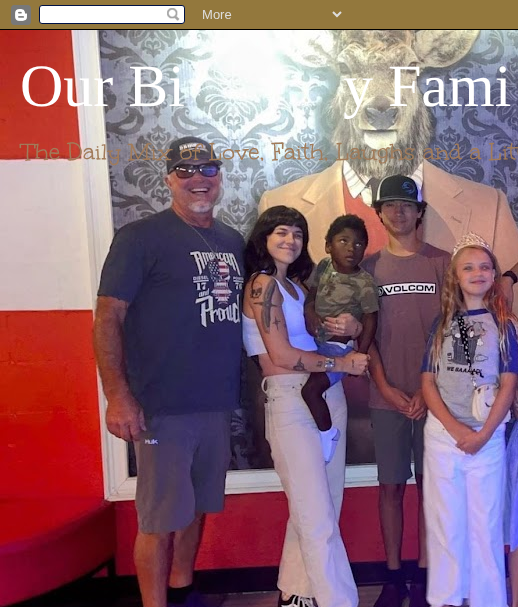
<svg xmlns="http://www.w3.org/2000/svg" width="518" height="607">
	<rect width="100%" height="100%" fill="#F6C866" />
	<image x="0" y="0" width="518" height="30" href="assets/img1.png" />
	<image x="0" y="30" width="518" height="577" href="assets/img2.png" />
	<g font-family="Liberation Serif" font-size="60" fill="#FFFFFF">
		<text x="20" y="106">Our Bi</text>
		<text x="343" y="106">y Fami</text>
	</g>
	<text x="22" y="161" font-family="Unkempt" font-size="25.75" fill="#A17B5A">The Daily Mix of Love, Faith, Laughs and a Litt</text>
</svg>
